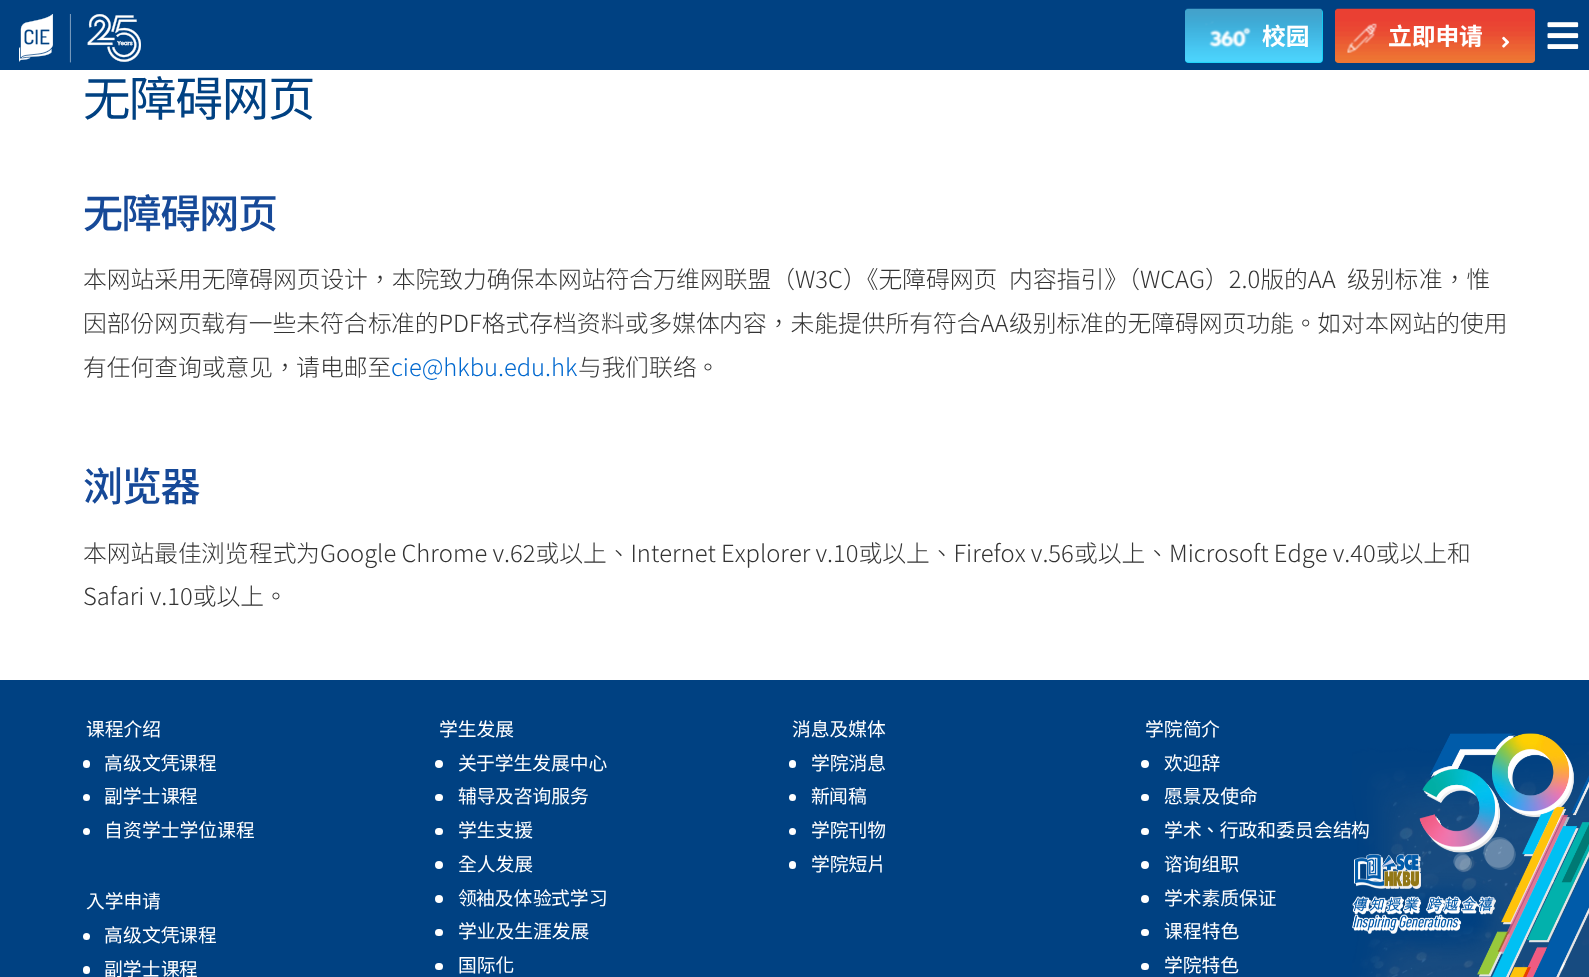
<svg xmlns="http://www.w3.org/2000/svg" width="1589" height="977">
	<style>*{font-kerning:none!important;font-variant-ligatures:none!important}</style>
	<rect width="100%" height="100%" fill="#FFFFFF" />
	<rect x="0" y="0" width="1589" height="70" fill="#004182" />
	<image x="19" y="14" width="122" height="49" href="assets/img1.png" />
	<rect x="1185" y="9" width="138" height="54" rx="4" fill="#04D4FA" />
	<image x="1185" y="8" width="138" height="55" href="assets/img2.png" />
	<image x="1205" y="21" width="46" height="27" href="assets/img3.png" />
	<text x="1262" y="45" font-family="Noto Sans TC" font-size="23.75" font-weight="700" fill="#FFFFFF">校园</text>
	<rect x="1335" y="9" width="200" height="54" rx="4" fill="#ED7633" />
	<image x="1335" y="8" width="200" height="55" href="assets/img4.png" />
	<image x="1347" y="23" width="30" height="30" href="assets/img5.png" />
	<text x="1388" y="45" font-family="Noto Sans TC" font-size="23.75" font-weight="700" fill="#FFFFFF">立即申</text>
	<text x="1459" y="45" font-family="Noto Sans SC" font-size="23.75" font-weight="700" fill="#FFFFFF">请</text>
	<image x="1502" y="36" width="8" height="12" href="assets/img6.png" />
	<image x="1547" y="22" width="32" height="27" href="assets/img7.png" />
	<text x="83" y="116" font-family="Noto Sans TC" font-size="47.5" letter-spacing="-1.25" fill="#004182">无障碍网页</text>
	<text x="83" y="228" font-family="Noto Sans TC" font-size="40" font-weight="500" letter-spacing="-1.25" fill="#164998">无障碍网页</text>
	<text x="83" y="288" font-family="Noto Sans TC" font-size="23.75" font-weight="300" fill="#333333">本网站采用无障碍网页设</text>
	<text x="344" y="288" font-family="Noto Sans SC" font-size="23.75" font-weight="300" fill="#333333">计</text>
	<text x="368" y="288" font-family="Noto Sans TC" font-size="23.75" font-weight="300" fill="#333333">，本院致力确保本网站符合万</text>
	<text x="676" y="288" font-family="Noto Sans SC" font-size="23.75" font-weight="300" fill="#333333">维</text>
	<text x="700" y="288" font-family="Noto Sans TC" font-size="23.75" font-weight="300" fill="#333333">网联盟（W3C）《无障碍网页</text>
	<text x="1009" y="288" font-family="Noto Sans SC" font-size="23.75" font-weight="300" fill="#333333">内</text>
	<text x="1033" y="288" font-family="Noto Sans TC" font-size="23.75" font-weight="300" fill="#333333">容指引》（WCAG）2.0版的AA</text>
	<text x="1347" y="288" font-family="Noto Sans SC" font-size="23.75" font-weight="300" fill="#333333">级别标</text>
	<g font-family="Noto Sans TC" font-size="23.75" font-weight="300" fill="#333333">
		<text x="1419" y="288">准，惟</text>
		<text x="83" y="332">因部份网页</text>
	</g>
	<text x="201" y="332" font-family="Noto Sans SC" font-size="23.75" font-weight="300" fill="#333333">载</text>
	<text x="225" y="332" font-family="Noto Sans TC" font-size="23.75" font-weight="300" fill="#333333">有一些未符合</text>
	<text x="368" y="332" font-family="Noto Sans SC" font-size="23.75" font-weight="300" fill="#333333">标</text>
	<text x="391" y="332" font-family="Noto Sans TC" font-size="23.75" font-weight="300" fill="#333333">准的PDF格式存</text>
	<text x="553" y="332" font-family="Noto Sans SC" font-size="23.75" font-weight="300" fill="#333333">档资</text>
	<text x="601" y="332" font-family="Noto Sans TC" font-size="23.75" font-weight="300" fill="#333333">料或多媒体</text>
	<text x="719" y="332" font-family="Noto Sans SC" font-size="23.75" font-weight="300" fill="#333333">内</text>
	<text x="743" y="332" font-family="Noto Sans TC" font-size="23.75" font-weight="300" fill="#333333">容，未能提供所有符合AA</text>
	<text x="1009" y="332" font-family="Noto Sans SC" font-size="23.75" font-weight="300" fill="#333333">级别标</text>
	<text x="1080" y="332" font-family="Noto Sans TC" font-size="23.75" font-weight="300" fill="#333333">准的无障碍网页功能。如</text>
	<text x="1341" y="332" font-family="Noto Sans SC" font-size="23.75" font-weight="300" fill="#333333">对</text>
	<g font-family="Noto Sans TC" font-size="23.75" font-weight="300" fill="#333333">
		<text x="1365" y="332">本网站的使用</text>
		<text x="83" y="376">有任何查询或意见，</text>
	</g>
	<text x="296" y="376" font-family="Noto Sans SC" font-size="23.75" font-weight="300" fill="#333333">请</text>
	<text x="320" y="376" font-family="Noto Sans TC" font-size="23.75" font-weight="300" fill="#333333">电邮至</text>
	<text x="391" y="376" font-family="Noto Sans TC" font-size="23.75" font-weight="300" fill="#0068CF">cie@hkbu.edu.hk</text>
	<text x="578" y="376" font-family="Noto Sans TC" font-size="23.75" font-weight="300" fill="#333333">与我</text>
	<text x="625" y="376" font-family="Noto Sans SC" font-size="23.75" font-weight="300" fill="#333333">们</text>
	<text x="649" y="376" font-family="Noto Sans TC" font-size="23.75" font-weight="300" fill="#333333">联</text>
	<text x="673" y="376" font-family="Noto Sans SC" font-size="23.75" font-weight="300" fill="#333333">络</text>
	<text x="696" y="376" font-family="Noto Sans TC" font-size="23.75" font-weight="300" fill="#333333">。</text>
	<text x="83" y="501" font-family="Noto Sans SC" font-size="40" font-weight="500" letter-spacing="-1.25" fill="#164998">浏览器</text>
	<text x="83" y="562" font-family="Noto Sans TC" font-size="23.75" font-weight="300" fill="#333333">本网站最佳</text>
	<text x="201" y="562" font-family="Noto Sans SC" font-size="23.75" font-weight="300" fill="#333333">浏览</text>
	<text x="249" y="562" font-family="Noto Sans TC" font-size="23.75" font-weight="300" fill="#333333">程式</text>
	<text x="296" y="562" font-family="Noto Sans SC" font-size="23.75" font-weight="300" fill="#333333">为</text>
	<g font-family="Noto Sans TC" font-size="23.75" font-weight="300" fill="#333333">
		<text x="320" y="562">Google Chrome v.62或以上、Internet Explorer v.10或以上、Firefox v.56</text>
		<text x="1074" y="562">或以上、Microsoft Edge v.40或以上和</text>
		<text x="83" y="605">Safari v.10或以上。</text>
	</g>
	<rect x="0" y="680" width="1589" height="297" fill="#004182" />
	<text x="86" y="736" font-family="Noto Sans SC" font-size="18.75" fill="#FFFFFF">课程介绍</text>
	<rect x="83" y="760" width="7" height="8" rx="3.5" fill="#FFFFFF" />
	<text x="104" y="770" font-family="Noto Sans TC" font-size="18.75" fill="#FFFFFF">高</text>
	<text x="123" y="770" font-family="Noto Sans SC" font-size="18.75" fill="#FFFFFF">级</text>
	<text x="142" y="770" font-family="Noto Sans TC" font-size="18.75" fill="#FFFFFF">文凭</text>
	<text x="179" y="770" font-family="Noto Sans SC" font-size="18.75" fill="#FFFFFF">课</text>
	<text x="198" y="770" font-family="Noto Sans TC" font-size="18.75" fill="#FFFFFF">程</text>
	<circle cx="86.5" cy="797.5" r="3.5" fill="#FFFFFF" />
	<text x="104" y="803" font-family="Noto Sans TC" font-size="18.75" fill="#FFFFFF">副学士</text>
	<text x="161" y="803" font-family="Noto Sans SC" font-size="18.75" fill="#FFFFFF">课</text>
	<text x="179" y="803" font-family="Noto Sans TC" font-size="18.75" fill="#FFFFFF">程</text>
	<circle cx="86.5" cy="831.5" r="3.5" fill="#FFFFFF" />
	<text x="104" y="837" font-family="Noto Sans TC" font-size="18.75" fill="#FFFFFF">自</text>
	<text x="123" y="837" font-family="Noto Sans SC" font-size="18.75" fill="#FFFFFF">资</text>
	<text x="142" y="837" font-family="Noto Sans TC" font-size="18.75" fill="#FFFFFF">学士学位</text>
	<text x="217" y="837" font-family="Noto Sans SC" font-size="18.75" fill="#FFFFFF">课</text>
	<g font-family="Noto Sans TC" font-size="18.75" fill="#FFFFFF">
		<text x="236" y="837">程</text>
		<text x="86" y="908">入学申</text>
	</g>
	<text x="142" y="908" font-family="Noto Sans SC" font-size="18.75" fill="#FFFFFF">请</text>
	<circle cx="86.5" cy="936.5" r="3.5" fill="#FFFFFF" />
	<text x="104" y="942" font-family="Noto Sans TC" font-size="18.75" fill="#FFFFFF">高</text>
	<text x="123" y="942" font-family="Noto Sans SC" font-size="18.75" fill="#FFFFFF">级</text>
	<text x="142" y="942" font-family="Noto Sans TC" font-size="18.75" fill="#FFFFFF">文凭</text>
	<text x="179" y="942" font-family="Noto Sans SC" font-size="18.75" fill="#FFFFFF">课</text>
	<text x="198" y="942" font-family="Noto Sans TC" font-size="18.75" fill="#FFFFFF">程</text>
	<rect x="83" y="966" width="7" height="8" rx="3.5" fill="#FFFFFF" />
	<text x="104" y="976" font-family="Noto Sans TC" font-size="18.75" fill="#FFFFFF">副学士</text>
	<text x="161" y="976" font-family="Noto Sans SC" font-size="18.75" fill="#FFFFFF">课</text>
	<g font-family="Noto Sans TC" font-size="18.75" fill="#FFFFFF">
		<text x="179" y="976">程</text>
		<text x="439" y="736">学生发展</text>
	</g>
	<circle cx="439" cy="764" r="4" fill="#FFFFFF" />
	<text x="458" y="770" font-family="Noto Sans SC" font-size="18.75" fill="#FFFFFF">关</text>
	<text x="476" y="770" font-family="Noto Sans TC" font-size="18.75" fill="#FFFFFF">于学生发展中心</text>
	<rect x="435" y="794" width="8" height="7" rx="3.5" fill="#FFFFFF" />
	<text x="458" y="803" font-family="Noto Sans SC" font-size="18.75" fill="#FFFFFF">辅导</text>
	<text x="495" y="803" font-family="Noto Sans TC" font-size="18.75" fill="#FFFFFF">及咨询服务</text>
	<rect x="435" y="828" width="8" height="7" rx="3.5" fill="#FFFFFF" />
	<text x="458" y="837" font-family="Noto Sans TC" font-size="18.75" fill="#FFFFFF">学生支援</text>
	<circle cx="439" cy="865" r="4" fill="#FFFFFF" />
	<text x="458" y="871" font-family="Noto Sans TC" font-size="18.75" fill="#FFFFFF">全人发展</text>
	<circle cx="439" cy="899" r="4" fill="#FFFFFF" />
	<text x="458" y="905" font-family="Noto Sans SC" font-size="18.75" fill="#FFFFFF">领</text>
	<text x="476" y="905" font-family="Noto Sans TC" font-size="18.75" fill="#FFFFFF">袖及体</text>
	<text x="533" y="905" font-family="Noto Sans SC" font-size="18.75" fill="#FFFFFF">验</text>
	<text x="551" y="905" font-family="Noto Sans TC" font-size="18.75" fill="#FFFFFF">式学</text>
	<text x="589" y="905" font-family="Noto Sans SC" font-size="18.75" fill="#FFFFFF">习</text>
	<rect x="435" y="929" width="8" height="7" rx="3.5" fill="#FFFFFF" />
	<text x="458" y="938" font-family="Noto Sans TC" font-size="18.75" fill="#FFFFFF">学业及生涯发展</text>
	<rect x="435" y="963" width="8" height="7" rx="3.5" fill="#FFFFFF" />
	<g font-family="Noto Sans TC" font-size="18.75" fill="#FFFFFF">
		<text x="458" y="972">国际化</text>
		<text x="792" y="736">消息及媒体</text>
	</g>
	<rect x="789" y="760" width="7" height="8" rx="3.5" fill="#FFFFFF" />
	<text x="811" y="770" font-family="Noto Sans TC" font-size="18.75" fill="#FFFFFF">学院消息</text>
	<circle cx="792.5" cy="797.5" r="3.5" fill="#FFFFFF" />
	<text x="811" y="803" font-family="Noto Sans TC" font-size="18.75" fill="#FFFFFF">新</text>
	<text x="829" y="803" font-family="Noto Sans SC" font-size="18.75" fill="#FFFFFF">闻</text>
	<text x="848" y="803" font-family="Noto Sans TC" font-size="18.75" fill="#FFFFFF">稿</text>
	<circle cx="792.5" cy="831.5" r="3.5" fill="#FFFFFF" />
	<text x="811" y="837" font-family="Noto Sans TC" font-size="18.75" fill="#FFFFFF">学院刊物</text>
	<rect x="789" y="861" width="7" height="8" rx="3.5" fill="#FFFFFF" />
	<g font-family="Noto Sans TC" font-size="18.75" fill="#FFFFFF">
		<text x="811" y="871">学院短片</text>
		<text x="1145" y="736">学院</text>
	</g>
	<text x="1183" y="736" font-family="Noto Sans SC" font-size="18.75" fill="#FFFFFF">简</text>
	<text x="1201" y="736" font-family="Noto Sans TC" font-size="18.75" fill="#FFFFFF">介</text>
	<circle cx="1145" cy="764" r="4" fill="#FFFFFF" />
	<text x="1164" y="770" font-family="Noto Sans SC" font-size="18.75" fill="#FFFFFF">欢迎辞</text>
	<rect x="1141" y="794" width="8" height="7" rx="3.5" fill="#FFFFFF" />
	<text x="1164" y="803" font-family="Noto Sans TC" font-size="18.75" fill="#FFFFFF">愿景及使命</text>
	<rect x="1141" y="828" width="8" height="7" rx="3.5" fill="#FFFFFF" />
	<text x="1164" y="837" font-family="Noto Sans TC" font-size="18.75" fill="#FFFFFF">学</text>
	<text x="1183" y="837" font-family="Noto Sans SC" font-size="18.75" fill="#FFFFFF">术</text>
	<text x="1201" y="837" font-family="Noto Sans TC" font-size="18.75" fill="#FFFFFF">、行政和委</text>
	<text x="1295" y="837" font-family="Noto Sans SC" font-size="18.75" fill="#FFFFFF">员</text>
	<text x="1314" y="837" font-family="Noto Sans TC" font-size="18.75" fill="#FFFFFF">会</text>
	<text x="1333" y="837" font-family="Noto Sans SC" font-size="18.75" fill="#FFFFFF">结</text>
	<text x="1351" y="837" font-family="Noto Sans TC" font-size="18.75" fill="#FFFFFF">构</text>
	<circle cx="1145" cy="865" r="4" fill="#FFFFFF" />
	<text x="1164" y="871" font-family="Noto Sans SC" font-size="18.75" fill="#FFFFFF">谘询组职</text>
	<circle cx="1145" cy="899" r="4" fill="#FFFFFF" />
	<text x="1164" y="905" font-family="Noto Sans SC" font-size="18.75" fill="#FFFFFF">学术素质保证</text>
	<rect x="1141" y="929" width="8" height="7" rx="3.5" fill="#FFFFFF" />
	<text x="1164" y="938" font-family="Noto Sans SC" font-size="18.75" fill="#FFFFFF">课</text>
	<text x="1183" y="938" font-family="Noto Sans TC" font-size="18.75" fill="#FFFFFF">程特色</text>
	<rect x="1141" y="963" width="8" height="7" rx="3.5" fill="#FFFFFF" />
	<text x="1164" y="972" font-family="Noto Sans TC" font-size="18.75" fill="#FFFFFF">学院特色</text>
	<image x="1352" y="733" width="237" height="244" href="assets/img8.png" />
</svg>
